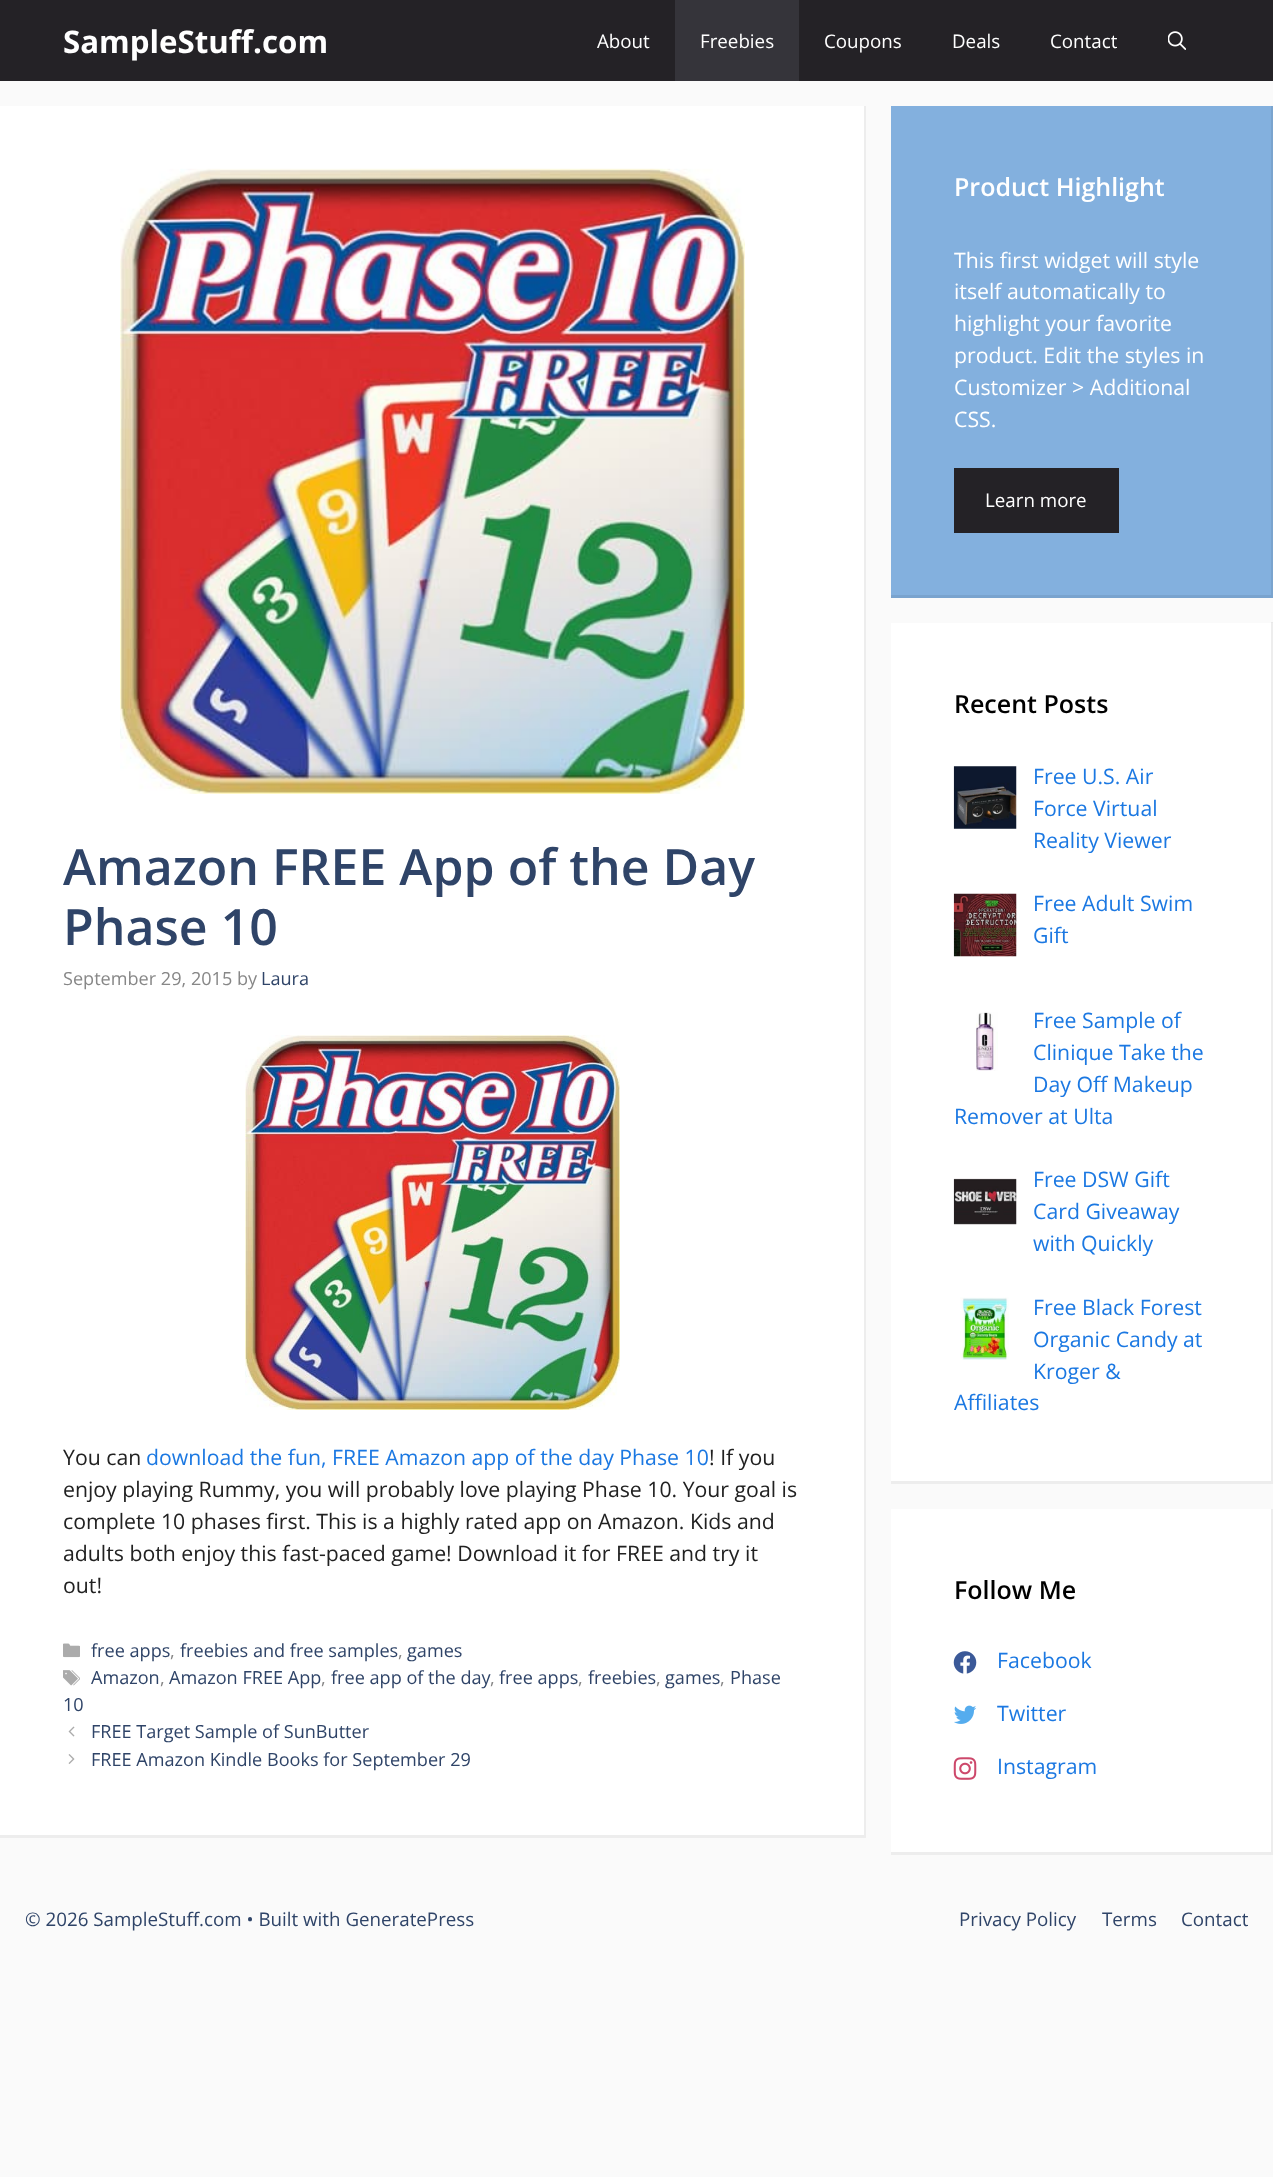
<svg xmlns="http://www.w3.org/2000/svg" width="1273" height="2177">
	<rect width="100%" height="100%" fill="#FAFAFA" />
	<rect x="0" y="0" width="1273" height="81" fill="#242226" />
	<text x="63" y="53" font-family="Open Sans" font-size="31.25" font-weight="700" fill="#FFFFFF">SampleStuff.com</text>
	<text x="597" y="48" font-family="Open Sans" font-size="18.75" fill="#FFFFFF">About</text>
	<rect x="675" y="0" width="124" height="81" fill="#35343A" />
	<g font-family="Open Sans" font-size="18.75" fill="#FFFFFF">
		<text x="700" y="48">Freebies</text>
		<text x="824" y="48">Coupons</text>
		<text x="952" y="48">Deals</text>
		<text x="1050" y="48">Contact</text>
	</g>
	<image x="1168" y="31" width="18" height="19" href="assets/img1.png" />
	<rect x="0" y="106" width="866" height="1732" fill="#FFFFFF" />
	<path d="M866 106V1838L864 1835V106Z" fill="#EDEDED" />
	<path d="M866 1838H0V1835H864Z" fill="#000000" fill-opacity="0.07" />
	<image x="120" y="168" width="625" height="626" href="assets/img2.png" />
	<g font-family="Open Sans" font-size="50" font-weight="600" fill="#2F4468">
		<text x="63" y="885">Amazon FREE App of the Day</text>
		<text x="63" y="945">Phase 10</text>
	</g>
	<text x="63" y="985" font-family="Open Sans" font-size="18.1" fill="#878787">September 29, 2015 by</text>
	<text x="261" y="985" font-family="Open Sans" font-size="18.1" fill="#2F4468">Laura</text>
	<image x="245" y="1035" width="375" height="375" href="assets/img3.png" />
	<text x="63" y="1465" font-family="Open Sans" font-size="21.25" fill="#212121">You can</text>
	<text x="146" y="1465" font-family="Open Sans" font-size="21.25" fill="#1B78E2">download the fun, FREE Amazon app of the day Phase 10</text>
	<g font-family="Open Sans" font-size="21.25" fill="#212121">
		<text x="709" y="1465">! If you</text>
		<text x="63" y="1497">enjoy playing Rummy, you will probably love playing Phase 10. Your goal is</text>
		<text x="63" y="1529">complete 10 phases first. This is a highly rated app on Amazon. Kids and</text>
		<text x="63" y="1561">adults both enjoy this fast-paced game! Download it for FREE and try it</text>
		<text x="63" y="1593">out!</text>
	</g>
	<image x="63" y="1643" width="17" height="15" href="assets/img4.png" />
	<text x="91" y="1657" font-family="Open Sans" font-size="18.1" fill="#2F4468">free apps</text>
	<text x="170" y="1657" font-family="Open Sans" font-size="18.1" fill="#878787">,</text>
	<text x="180" y="1657" font-family="Open Sans" font-size="18.1" fill="#2F4468">freebies and free samples</text>
	<text x="398" y="1657" font-family="Open Sans" font-size="18.1" fill="#878787">,</text>
	<text x="407" y="1657" font-family="Open Sans" font-size="18.1" fill="#2F4468">games</text>
	<image x="63" y="1670" width="17" height="16" href="assets/img5.png" />
	<text x="91" y="1684" font-family="Open Sans" font-size="18.1" fill="#2F4468">Amazon</text>
	<text x="160" y="1684" font-family="Open Sans" font-size="18.1" fill="#878787">,</text>
	<text x="169" y="1684" font-family="Open Sans" font-size="18.1" fill="#2F4468">Amazon FREE App</text>
	<text x="321" y="1684" font-family="Open Sans" font-size="18.1" fill="#878787">,</text>
	<text x="331" y="1684" font-family="Open Sans" font-size="18.1" fill="#2F4468">free app of the day</text>
	<text x="490" y="1684" font-family="Open Sans" font-size="18.1" fill="#878787">,</text>
	<text x="499" y="1684" font-family="Open Sans" font-size="18.1" fill="#2F4468">free apps</text>
	<text x="578" y="1684" font-family="Open Sans" font-size="18.1" fill="#878787">,</text>
	<text x="588" y="1684" font-family="Open Sans" font-size="18.1" fill="#2F4468">freebies</text>
	<text x="656" y="1684" font-family="Open Sans" font-size="18.1" fill="#878787">,</text>
	<text x="665" y="1684" font-family="Open Sans" font-size="18.1" fill="#2F4468">games</text>
	<text x="720" y="1684" font-family="Open Sans" font-size="18.1" fill="#878787">,</text>
	<g font-family="Open Sans" font-size="18.1" fill="#2F4468">
		<text x="730" y="1684">Phase</text>
		<text x="63" y="1711">10</text>
	</g>
	<image x="68" y="1726" width="7" height="11" href="assets/img6.png" />
	<text x="91" y="1738" font-family="Open Sans" font-size="18.1" fill="#2F4468">FREE Target Sample of SunButter</text>
	<image x="68" y="1754" width="7" height="10" href="assets/img7.png" />
	<text x="91" y="1766" font-family="Open Sans" font-size="18.1" fill="#2F4468">FREE Amazon Kindle Books for September 29</text>
	<rect x="891" y="106" width="382" height="492" fill="#83B0DE" />
	<path d="M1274 106V598L1271 595V106Z" fill="#7AA4CE" />
	<path d="M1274 598H891V595H1271Z" fill="#000000" fill-opacity="0.07" />
	<text x="954" y="196" font-family="Open Sans" font-size="25" font-weight="600" fill="#FFFFFF">Product Highlight</text>
	<g font-family="Open Sans" font-size="21.25" fill="#FFFFFF">
		<text x="954" y="268">This first widget will style</text>
		<text x="954" y="299">itself automatically to</text>
		<text x="954" y="331">highlight your favorite</text>
		<text x="954" y="363">product. Edit the styles in</text>
		<text x="954" y="395">Customizer &gt; Additional</text>
		<text x="954" y="427">CSS.</text>
	</g>
	<rect x="954" y="468" width="165" height="65" fill="#242226" />
	<text x="985" y="507" font-family="Open Sans" font-size="18.75" fill="#FFFFFF">Learn more</text>
	<rect x="891" y="623" width="382" height="861" fill="#FFFFFF" />
	<path d="M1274 622V1484L1271 1481V622Z" fill="#000000" fill-opacity="0.07" />
	<path d="M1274 1484H891V1481H1271Z" fill="#000000" fill-opacity="0.07" />
	<text x="954" y="713" font-family="Open Sans" font-size="25" font-weight="600" fill="#000000">Recent Posts</text>
	<image x="953" y="766" width="64" height="63" href="assets/img8.png" />
	<g font-family="Open Sans" font-size="21.25" fill="#1B78E2">
		<text x="1033" y="784">Free U.S. Air</text>
		<text x="1033" y="816">Force Virtual</text>
		<text x="1033" y="848">Reality Viewer</text>
	</g>
	<image x="953" y="893" width="64" height="64" href="assets/img9.png" />
	<g font-family="Open Sans" font-size="21.25" fill="#1B78E2">
		<text x="1033" y="911">Free Adult Swim</text>
		<text x="1033" y="943">Gift</text>
	</g>
	<image x="976" y="1012" width="22" height="59" href="assets/img10.png" />
	<g font-family="Open Sans" font-size="21.25" fill="#1B78E2">
		<text x="1033" y="1028">Free Sample of</text>
		<text x="1033" y="1060">Clinique Take the</text>
		<text x="1033" y="1092">Day Off Makeup</text>
		<text x="954" y="1124">Remover at Ulta</text>
	</g>
	<image x="953" y="1178" width="64" height="47" href="assets/img11.png" />
	<g font-family="Open Sans" font-size="21.25" fill="#1B78E2">
		<text x="1033" y="1187">Free DSW Gift</text>
		<text x="1033" y="1219">Card Giveaway</text>
		<text x="1033" y="1251">with Quickly</text>
	</g>
	<image x="960" y="1297" width="49" height="63" href="assets/img12.png" />
	<g font-family="Open Sans" font-size="21.25" fill="#1B78E2">
		<text x="1033" y="1315">Free Black Forest</text>
		<text x="1033" y="1347">Organic Candy at</text>
		<text x="1033" y="1379">Kroger &amp;</text>
		<text x="954" y="1410">Affiliates</text>
	</g>
	<rect x="891" y="1509" width="382" height="346" fill="#FFFFFF" />
	<path d="M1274 1509V1855L1271 1852V1509Z" fill="#EDEDED" />
	<path d="M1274 1855H891V1852H1271Z" fill="#000000" fill-opacity="0.07" />
	<text x="954" y="1599" font-family="Open Sans" font-size="25" font-weight="600" fill="#000000">Follow Me</text>
	<image x="953" y="1651" width="24" height="23" href="assets/img13.png" />
	<text x="997" y="1668" font-family="Open Sans" font-size="21.25" fill="#1B78E2">Facebook</text>
	<image x="954" y="1705" width="23" height="19" href="assets/img14.png" />
	<text x="997" y="1721" font-family="Open Sans" font-size="21.25" fill="#1B78E2">Twitter</text>
	<image x="953" y="1757" width="24" height="23" href="assets/img15.png" />
	<text x="997" y="1774" font-family="Open Sans" font-size="21.25" fill="#1B78E2">Instagram</text>
	<g font-family="Open Sans" font-size="18.75" fill="#2F4468">
		<text x="25" y="1926">© 2026 SampleStuff.com • Built with GeneratePress</text>
		<text x="959" y="1926">Privacy Policy</text>
		<text x="1102" y="1926">Terms</text>
		<text x="1181" y="1926">Contact</text>
	</g>
</svg>
